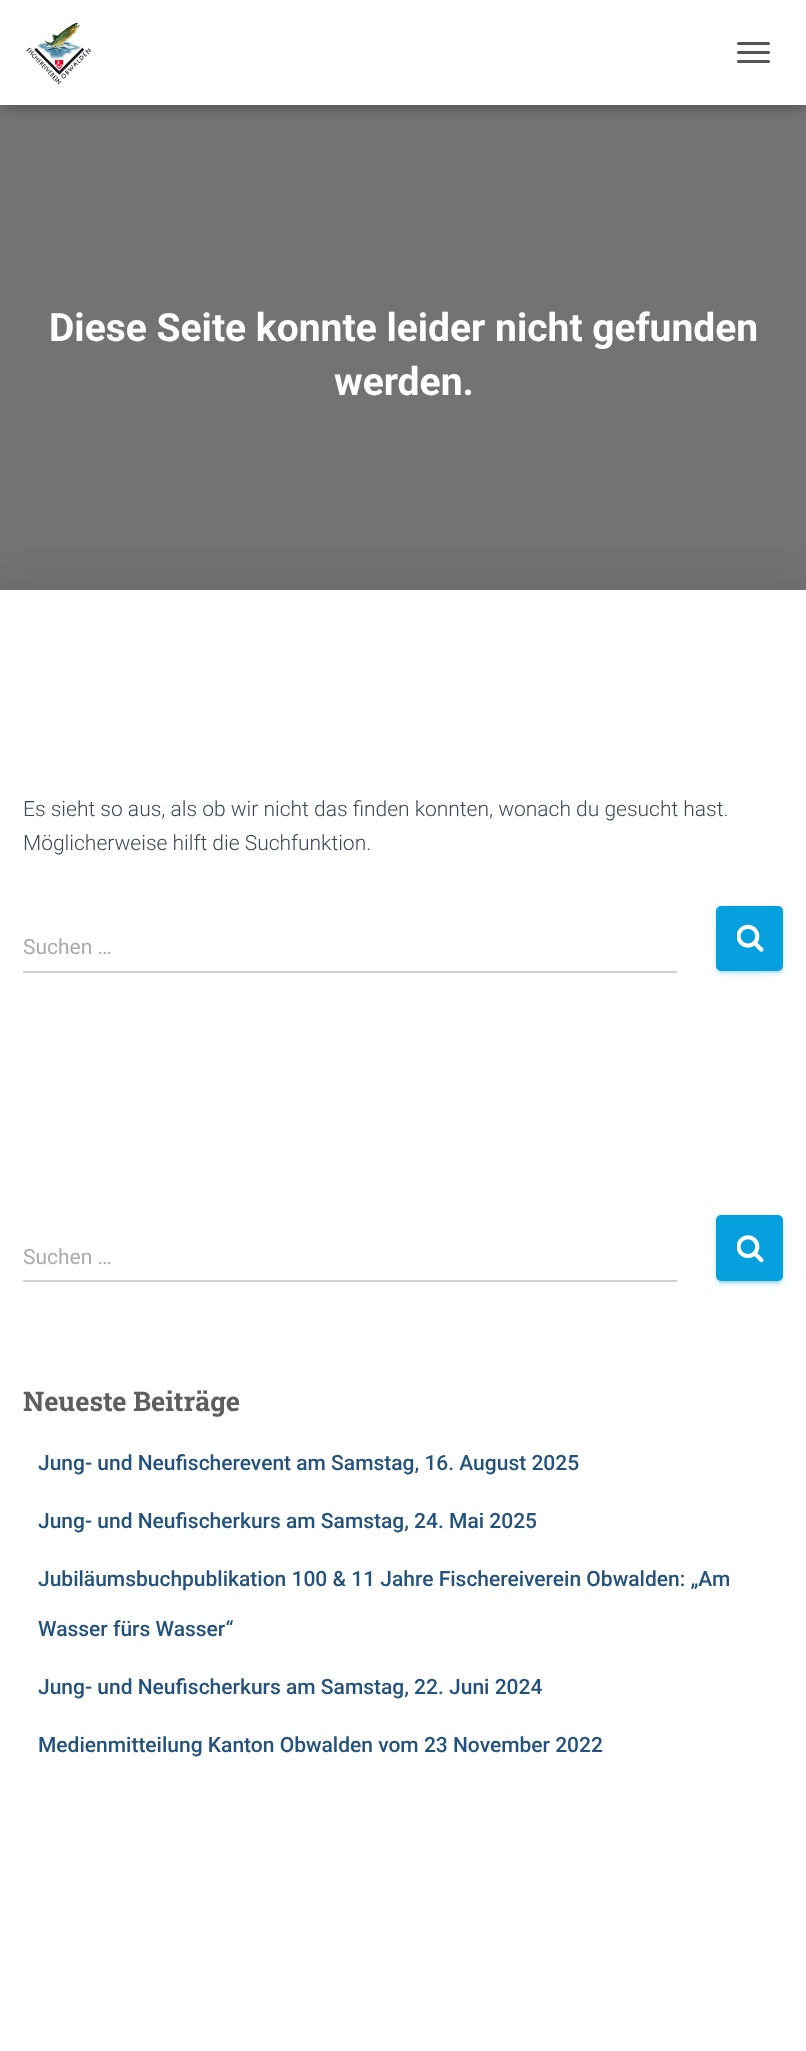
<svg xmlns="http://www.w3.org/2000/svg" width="806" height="2051">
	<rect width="100%" height="100%" fill="#737373" />
	<rect x="3" y="9" width="801" height="99" fill="#000000" fill-opacity="0.1" filter="blur(4px)" />
	<rect x="0" y="2" width="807" height="105" fill="#000000" fill-opacity="0.12" filter="blur(7.5px)" />
	<rect x="9" y="11" width="789" height="87" fill="#000000" fill-opacity="0.42" filter="blur(7.5px)" />
	<rect x="0" y="0" width="806" height="105" fill="#FFFFFF" />
	<image x="26" y="22" width="66" height="63" href="assets/img1.png" />
	<rect x="737" y="42" width="33" height="3" rx="1.5" fill="#555555" />
	<rect x="737" y="51" width="33" height="3" rx="1.5" fill="#555555" />
	<rect x="737" y="60" width="33" height="3" rx="1.5" fill="#555555" />
	<g font-family="Roboto" font-size="39" font-weight="700" fill="#FFFFFF">
		<text x="49" y="341">Diese Seite konnte leider nicht gefunden</text>
		<text x="334" y="395">werden.</text>
	</g>
	<rect x="-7" y="591" width="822" height="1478" fill="#000000" fill-opacity="0.12" filter="blur(22.5px)" />
	<rect x="0" y="590" width="806" height="1461" fill="#FFFFFF" />
	<g font-family="Roboto" font-size="21" font-weight="300" fill="#3C4858">
		<text x="23" y="816">Es sieht so aus, als ob wir nicht das finden konnten, wonach du gesucht hast.</text>
		<text x="23" y="850">Möglicherweise hilft die Suchfunktion.</text>
	</g>
	<text x="23" y="954" font-family="Roboto" font-size="21" fill="#AAAAAA">Suchen …</text>
	<rect x="23" y="971" width="654" height="2" fill="#D2D2D2" />
	<rect x="716" y="908" width="67" height="64" rx="5" fill="#07A0DE" fill-opacity="0.12" filter="blur(4px)" />
	<rect x="719" y="914" width="61" height="58" rx="1.5" fill="#07A0DE" fill-opacity="0.2" filter="blur(1px)" />
	<rect x="716" y="909" width="67" height="65" rx="5" fill="#07A0DE" fill-opacity="0.14" filter="blur(1.5px)" />
	<rect x="716" y="906" width="67" height="65" rx="5" fill="#07A0DE" />
	<image x="737" y="924" width="27" height="28" href="assets/img2.png" />
	<text x="23" y="1264" font-family="Roboto" font-size="21" fill="#AAAAAA">Suchen …</text>
	<rect x="23" y="1280" width="654" height="2" fill="#D2D2D2" />
	<rect x="716" y="1217" width="67" height="66" rx="5" fill="#07A0DE" fill-opacity="0.12" filter="blur(4px)" />
	<rect x="719" y="1223" width="61" height="60" rx="1.5" fill="#07A0DE" fill-opacity="0.2" filter="blur(1px)" />
	<rect x="716" y="1218" width="67" height="66" rx="5" fill="#07A0DE" fill-opacity="0.14" filter="blur(1.5px)" />
	<rect x="716" y="1215" width="67" height="66" rx="5" fill="#07A0DE" />
	<image x="737" y="1235" width="27" height="28" href="assets/img3.png" />
	<text x="23" y="1411" font-family="Roboto Slab" font-size="27" font-weight="700" fill="#5E5E5E">Neueste Beiträge</text>
	<g font-family="Roboto" font-size="21" font-weight="500" fill="#23527C">
		<text x="38" y="1470">Jung- und Neufischerevent am Samstag, 16. August 2025</text>
		<text x="38" y="1528">Jung- und Neufischerkurs am Samstag, 24. Mai 2025</text>
		<text x="38" y="1586">Jubiläumsbuchpublikation 100 &amp; 11 Jahre Fischereiverein Obwalden: „Am</text>
		<text x="38" y="1636">Wasser fürs Wasser“</text>
		<text x="38" y="1694">Jung- und Neufischerkurs am Samstag, 22. Juni 2024</text>
		<text x="38" y="1752">Medienmitteilung Kanton Obwalden vom 23 November 2022</text>
	</g>
</svg>
